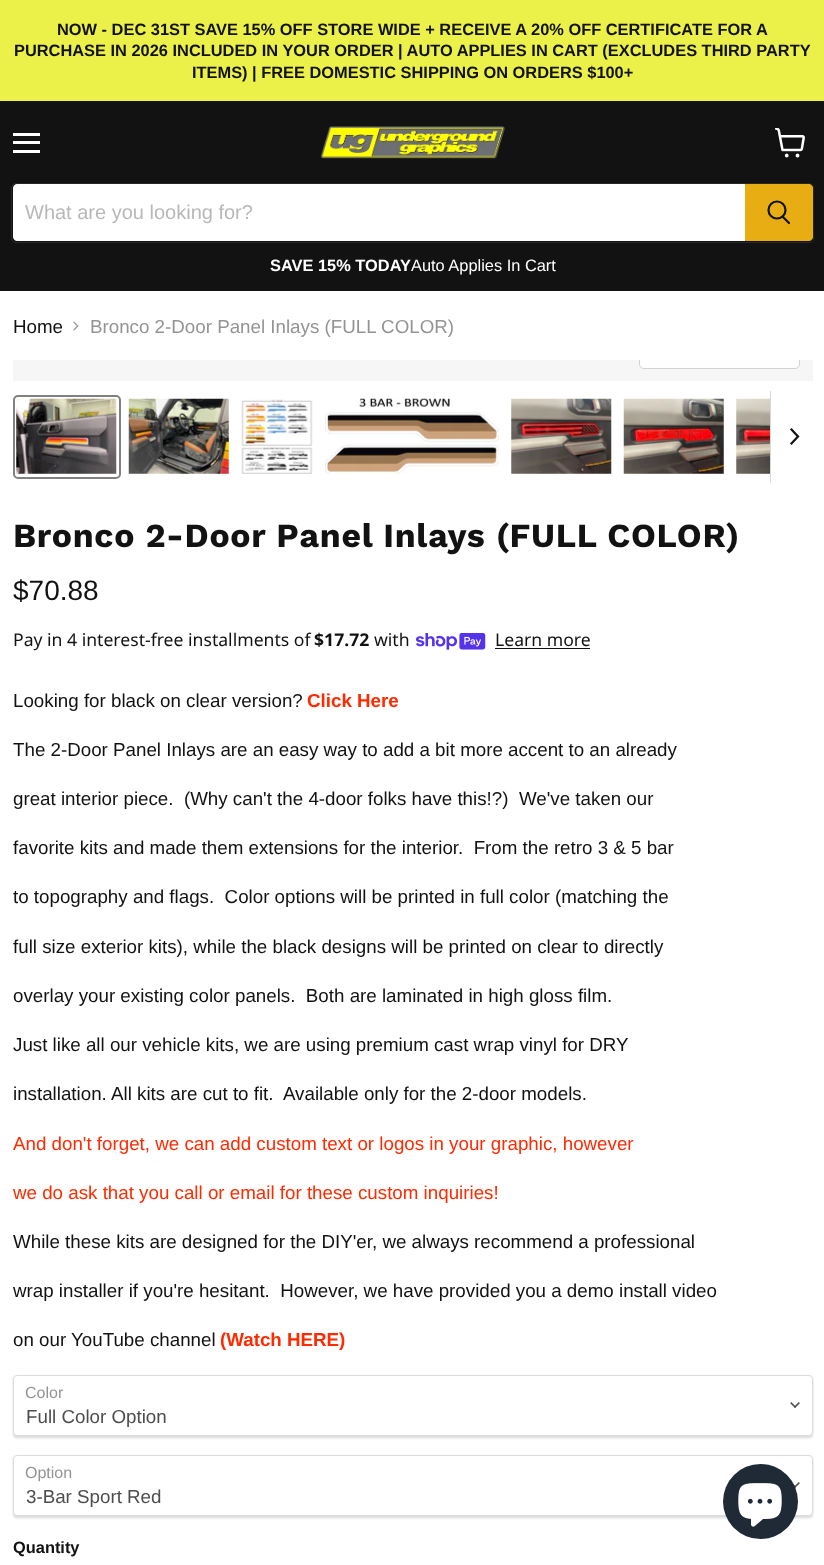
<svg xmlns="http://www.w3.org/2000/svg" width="824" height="1565">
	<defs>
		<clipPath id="clip1"><rect x="13" y="360" width="800" height="21" /></clipPath>
	</defs>
	<rect width="100%" height="100%" fill="#FFFFFF" />
	<rect x="0" y="0" width="824" height="101" fill="#EBF148" />
	<g font-family="Liberation Sans" font-size="16.4" font-weight="700" fill="#121212">
		<text x="57" y="35">NOW - DEC 31ST SAVE 15% OFF STORE WIDE + RECEIVE A 20% OFF CERTIFICATE FOR A</text>
		<text x="14" y="56">PURCHASE IN 2026 INCLUDED IN YOUR ORDER | AUTO APPLIES IN CART (EXCLUDES THIRD PARTY</text>
		<text x="192" y="78">ITEMS) | FREE DOMESTIC SHIPPING ON ORDERS $100+</text>
	</g>
	<rect x="0" y="101" width="824" height="190" fill="#121212" />
	<rect x="13" y="133" width="27" height="3" fill="#FFFFFF" />
	<rect x="13" y="141" width="27" height="3" fill="#FFFFFF" />
	<rect x="13" y="150" width="27" height="3" fill="#FFFFFF" />
	<image x="775" y="128" width="30" height="30" href="assets/img1.png" />
	<image x="320" y="126" width="185" height="33" href="assets/img2.png" />
	<rect x="11.5" y="183.5" width="802" height="59" rx="4.5" fill="none" stroke="#808080" stroke-opacity="0.2" />
	<path d="M17 184H745V241H17C15 241 13 239 13 237V188C13 186 15 184 17 184Z" fill="#FFFFFF" />
	<text x="25" y="219" font-family="Liberation Sans" font-size="20" fill="#B8B8B8">What are you looking for?</text>
	<path d="M745.5 184.5H809C811 184.5 812.5 186 812.5 188V237C812.5 239 811 240.5 809 240.5H745.5Z" fill="#E9AD14" stroke="#E9AD14" />
	<path d="M789 223L783 217" fill="none" stroke="#121212" stroke-width="2.2" stroke-linecap="round" />
	<circle cx="777" cy="210" r="8.5" fill="none" stroke="#121212" stroke-width="2.2" />
	<text x="270" y="271" font-family="Liberation Sans" font-size="16.4" font-weight="700" fill="#FFFFFF">SAVE 15% TODAY</text>
	<text x="411" y="271" font-family="Liberation Sans" font-size="16.4" fill="#FFFFFF">Auto Applies In Cart</text>
	<text x="13" y="333" font-family="Liberation Sans" font-size="18.75" fill="#121212">Home</text>
	<image x="73" y="321" width="6" height="10" href="assets/img3.png" />
	<text x="90" y="333" font-family="Liberation Sans" font-size="18.75" fill="#949494">Bronco 2-Door Panel Inlays (FULL COLOR)</text>
	<rect x="13" y="360" width="800" height="21" fill="#F6F6F6" />
	<g clip-path="url(#clip1)">
		<rect x="639.5" y="333.5" width="160" height="35" rx="4.5" fill="none" stroke="#D1D1D1" />
	</g>
	<path d="M640 360H799V364C799 366 797 368 795 368H644C642 368 640 366 640 364Z" fill="#FFFFFF" fill-opacity="0.9" />
	<rect x="14" y="396" width="106" height="82" rx="4" fill="none" stroke="#818181" stroke-width="2" />
	<image x="16" y="398" width="101" height="76" href="assets/img4.png" />
	<image x="128" y="398" width="101" height="76" href="assets/img5.png" />
	<image x="241" y="399" width="72" height="75" href="assets/img6.png" />
	<image x="325" y="398" width="174" height="76" href="assets/img7.png" />
	<image x="511" y="398" width="101" height="76" href="assets/img8.png" />
	<image x="623" y="398" width="101" height="76" href="assets/img9.png" />
	<image x="736" y="398" width="34" height="76" href="assets/img10.png" />
	<rect x="770" y="391" width="1" height="92" fill="#D9D9D9" />
	<path d="M798 436.5L791.5 429.5M798 436.5L791.5 443.5" fill="none" stroke="#121212" stroke-width="2.2" stroke-linecap="square" />
	<text x="13" y="547" font-family="Work Sans" font-size="33.75" font-weight="700" letter-spacing="0.7" fill="#121212">Bronco 2-Door Panel Inlays (FULL COLOR)</text>
	<text x="13" y="600" font-family="Liberation Sans" font-size="28" fill="#121212">$70.88</text>
	<text x="13" y="646" font-family="Noto Sans" font-size="17.6" fill="#121212">Pay in 4 interest-free installments of</text>
	<text x="314" y="646" font-family="Noto Sans" font-size="17.6" font-weight="700" fill="#121212">$17.72</text>
	<text x="374" y="646" font-family="Noto Sans" font-size="17.6" fill="#121212">with</text>
	<image x="416" y="633" width="70" height="17" href="assets/img11.png" />
	<text x="495" y="646" font-family="Noto Sans" font-size="17.6" fill="#121212">Learn more</text>
	<rect x="495" y="648" width="95" height="1" fill="#121212" />
	<text x="13" y="707" font-family="Liberation Sans" font-size="18.75" fill="#121212">Looking for black on clear version?</text>
	<text x="307" y="707" font-family="Liberation Sans" font-size="18.75" font-weight="700" fill="#FF2A00">Click Here</text>
	<g font-family="Liberation Sans" font-size="18.75" fill="#121212">
		<text x="13" y="756">The 2-Door Panel Inlays are an easy way to add a bit more accent to an already</text>
		<text x="13" y="805" xml:space="preserve">great interior piece.  (Why can't the 4-door folks have this!?)  We've taken our</text>
		<text x="13" y="854" xml:space="preserve">favorite kits and made them extensions for the interior.  From the retro 3 &amp; 5 bar</text>
		<text x="13" y="903" xml:space="preserve">to topography and flags.  Color options will be printed in full color (matching the</text>
		<text x="13" y="953">full size exterior kits), while the black designs will be printed on clear to directly</text>
		<text x="13" y="1002" xml:space="preserve">overlay your existing color panels.  Both are laminated in high gloss film.</text>
		<text x="13" y="1051">Just like all our vehicle kits, we are using premium cast wrap vinyl for DRY</text>
		<text x="13" y="1100" xml:space="preserve">installation. All kits are cut to fit.  Available only for the 2-door models.</text>
	</g>
	<g font-family="Liberation Sans" font-size="18.75" fill="#FF2A00">
		<text x="13" y="1150">And don't forget, we can add custom text or logos in your graphic, however</text>
		<text x="13" y="1199">we do ask that you call or email for these custom inquiries!</text>
	</g>
	<g font-family="Liberation Sans" font-size="18.75" fill="#121212">
		<text x="13" y="1248">While these kits are designed for the DIY'er, we always recommend a professional</text>
		<text x="13" y="1297" xml:space="preserve">wrap installer if you're hesitant.  However, we have provided you a demo install video</text>
		<text x="13" y="1346">on our YouTube channel</text>
	</g>
	<text x="220" y="1346" font-family="Liberation Sans" font-size="18.75" font-weight="700" fill="#FF2A00">(Watch HERE)</text>
	<rect x="13" y="1376" width="800" height="62" rx="4" fill="#000000" fill-opacity="0.15" filter="blur(1px)" />
	<rect x="13.5" y="1375.5" width="799" height="60" rx="3.5" fill="#FFFFFF" stroke="#DDDDDD" />
	<text x="25" y="1398" font-family="Liberation Sans" font-size="16" fill="#949494">Color</text>
	<image x="790" y="1402" width="10" height="6" href="assets/img12.png" />
	<text x="26" y="1423" font-family="Liberation Sans" font-size="18.75" fill="#4D4D4D">Full Color Option</text>
	<rect x="13" y="1456" width="800" height="62" rx="4" fill="#000000" fill-opacity="0.15" filter="blur(1px)" />
	<rect x="13.5" y="1455.5" width="799" height="60" rx="3.5" fill="#FFFFFF" stroke="#DDDDDD" />
	<text x="25" y="1478" font-family="Liberation Sans" font-size="16" fill="#949494">Option</text>
	<image x="792" y="1482" width="8" height="6" href="assets/img13.png" />
	<text x="26" y="1503" font-family="Liberation Sans" font-size="18.75" fill="#4D4D4D">3-Bar Sport Red</text>
	<text x="13" y="1553" font-family="Liberation Sans" font-size="16.4" font-weight="700" fill="#121212">Quantity</text>
	<circle cx="760.5" cy="1501.5" r="37.5" fill="#202A36" />
	<image x="738" y="1483" width="44" height="44" href="assets/img14.png" />
</svg>
